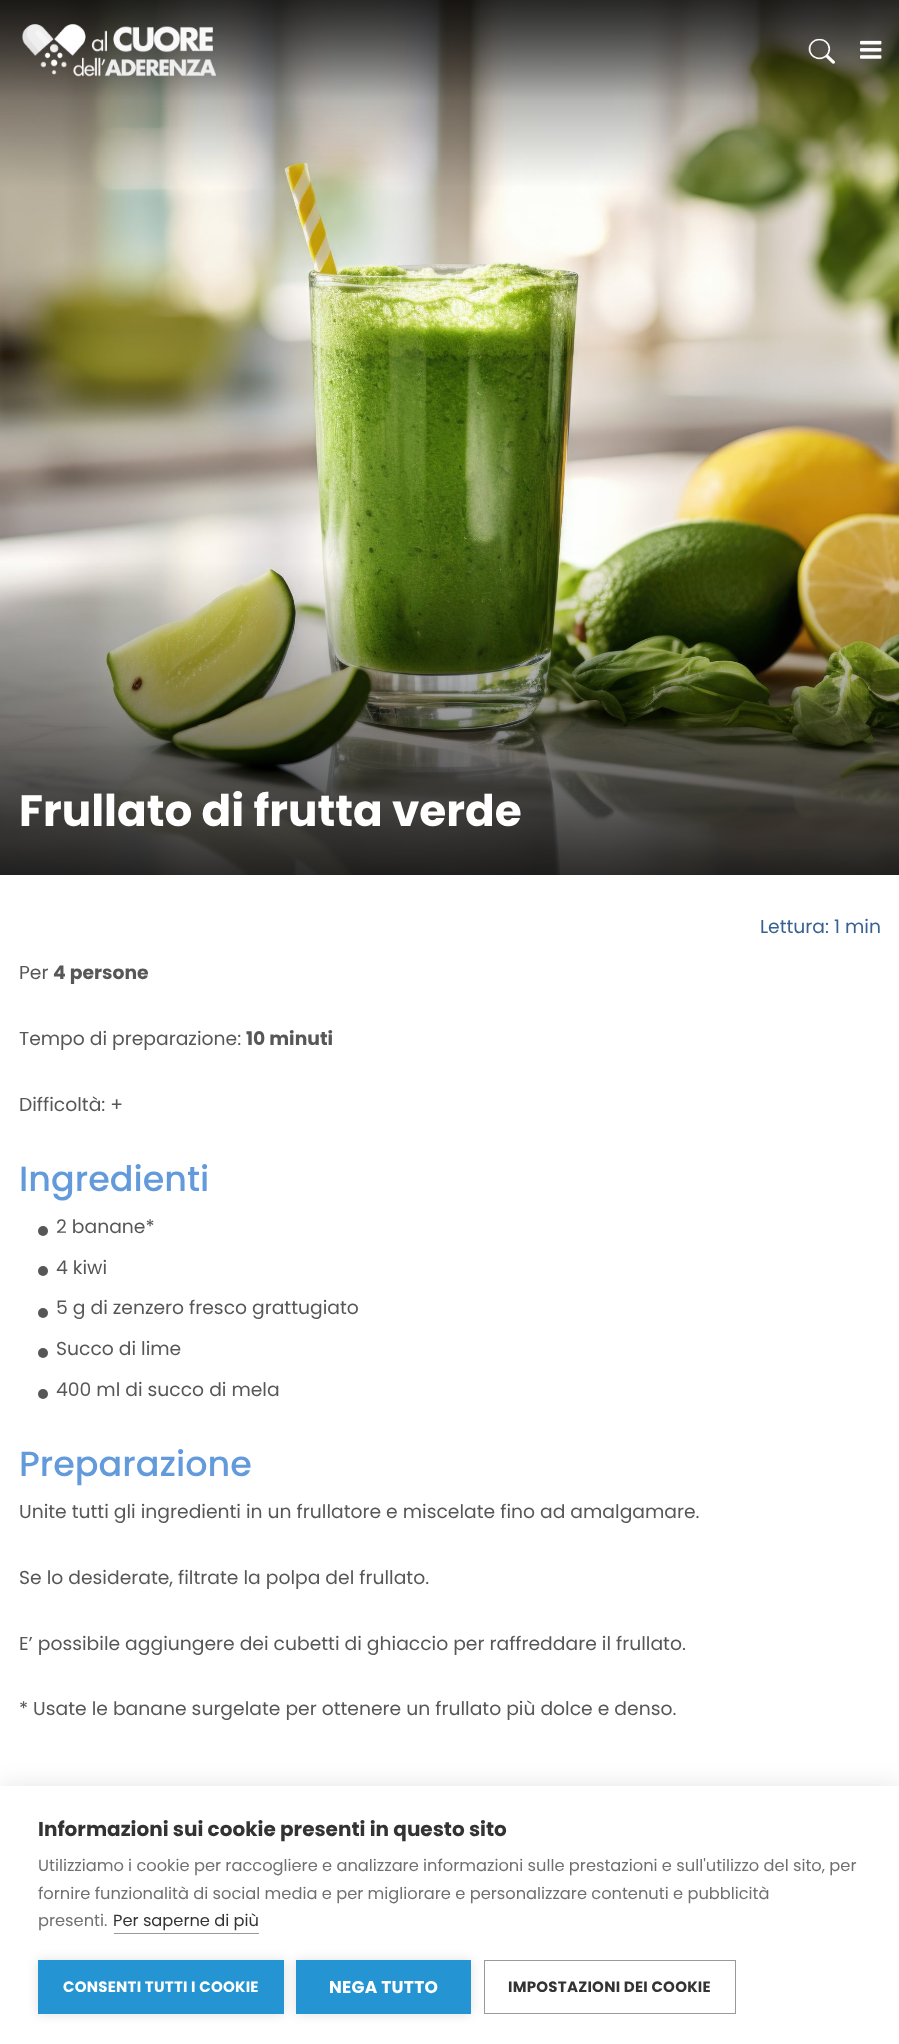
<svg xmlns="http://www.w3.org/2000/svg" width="899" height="2044">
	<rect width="100%" height="100%" fill="#FFFFFF" />
	<image x="0" y="0" width="899" height="875" href="assets/img4.png" />
	<image x="22" y="23" width="194" height="54" href="assets/img1.png" />
	<image x="808" y="38" width="27" height="26" href="assets/img2.png" />
	<image x="860" y="40" width="22" height="19" href="assets/img3.png" />
	<text x="19" y="826" font-family="Poppins" font-size="43.75" font-weight="700" fill="#FFFFFF">Frullato di frutta verde</text>
	<text x="760" y="933" font-family="Poppins" font-size="18.75" fill="#386193">Lettura: 1 min</text>
	<text x="19" y="979" font-family="Poppins" font-size="18.75" fill="#575757">Per</text>
	<text x="53" y="979" font-family="Poppins" font-size="18.75" font-weight="700" fill="#575757">4 persone</text>
	<text x="19" y="1045" font-family="Poppins" font-size="18.75" fill="#575757">Tempo di preparazione:</text>
	<text x="246" y="1045" font-family="Poppins" font-size="18.75" font-weight="700" fill="#575757">10 minuti</text>
	<text x="19" y="1111" font-family="Poppins" font-size="18.75" fill="#575757">Difficoltà: +</text>
	<text x="19" y="1191" font-family="Poppins" font-size="35" font-weight="500" fill="#639ADB">Ingredienti</text>
	<circle cx="43" cy="1231" r="5" fill="#575757" />
	<text x="56" y="1233" font-family="Poppins" font-size="18.75" fill="#575757">2 banane*</text>
	<circle cx="43" cy="1271" r="5" fill="#575757" />
	<text x="56" y="1274" font-family="Poppins" font-size="18.75" fill="#575757">4 kiwi</text>
	<circle cx="43" cy="1313" r="5" fill="#575757" />
	<text x="56" y="1314" font-family="Poppins" font-size="18.75" fill="#575757">5 g di zenzero fresco grattugiato</text>
	<circle cx="43" cy="1353" r="5" fill="#575757" />
	<text x="56" y="1355" font-family="Poppins" font-size="18.75" fill="#575757">Succo di lime</text>
	<circle cx="43" cy="1394" r="5" fill="#575757" />
	<text x="56" y="1396" font-family="Poppins" font-size="18.75" fill="#575757">400 ml di succo di mela</text>
	<text x="19" y="1476" font-family="Poppins" font-size="35" font-weight="500" fill="#639ADB">Preparazione</text>
	<g font-family="Poppins" font-size="18.75" fill="#575757">
		<text x="19" y="1518">Unite tutti gli ingredienti in un frullatore e miscelate fino ad amalgamare.</text>
		<text x="19" y="1584">Se lo desiderate, filtrate la polpa del frullato.</text>
		<text x="19" y="1650">E’ possibile aggiungere dei cubetti di ghiaccio per raffreddare il frullato.</text>
		<text x="19" y="1715">* Usate le banane surgelate per ottenere un frullato più dolce e denso.</text>
	</g>
	<rect x="0" y="1786" width="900" height="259" fill="#000000" fill-opacity="0.1" filter="blur(12.5px)" />
	<rect x="0" y="1786" width="899" height="258" fill="#FFFFFF" />
	<text x="38" y="1836" font-family="Poppins" font-size="20" font-weight="700" fill="#333333">Informazioni sui cookie presenti in questo sito</text>
	<g font-family="Poppins" font-size="16.25" fill="#707070">
		<text x="38" y="1871">Utilizziamo i cookie per raccogliere e analizzare informazioni sulle prestazioni e sull'utilizzo del sito, per</text>
		<text x="38" y="1899">fornire funzionalità di social media e per migliorare e personalizzare contenuti e pubblicità</text>
		<text x="38" y="1926">presenti.</text>
	</g>
	<text x="113" y="1926" font-family="Poppins" font-size="16.25" fill="#333333">Per saperne di più</text>
	<rect x="114" y="1933" width="145" height="1" fill="#999999" />
	<rect x="38" y="1960" width="246" height="54" fill="#000000" fill-opacity="0.12" filter="blur(6px)" />
	<rect x="38" y="1960" width="246" height="54" fill="#2594D2" />
	<text x="63" y="1992" font-family="Poppins" font-size="15" font-weight="700" letter-spacing="0.25" fill="#FFFFFF">CONSENTI TUTTI I COOKIE</text>
	<rect x="296" y="1960" width="175" height="54" fill="#000000" fill-opacity="0.12" filter="blur(6px)" />
	<rect x="296" y="1960" width="175" height="54" fill="#2594D2" />
	<text x="329" y="1993" font-family="Poppins" font-size="17" font-weight="700" letter-spacing="0.25" fill="#FFFFFF">NEGA TUTTO</text>
	<rect x="484.5" y="1960.5" width="251" height="53" fill="none" stroke="#999999" />
	<text x="508" y="1992" font-family="Poppins" font-size="15" font-weight="700" letter-spacing="0.25" fill="#333333">IMPOSTAZIONI DEI COOKIE</text>
</svg>
